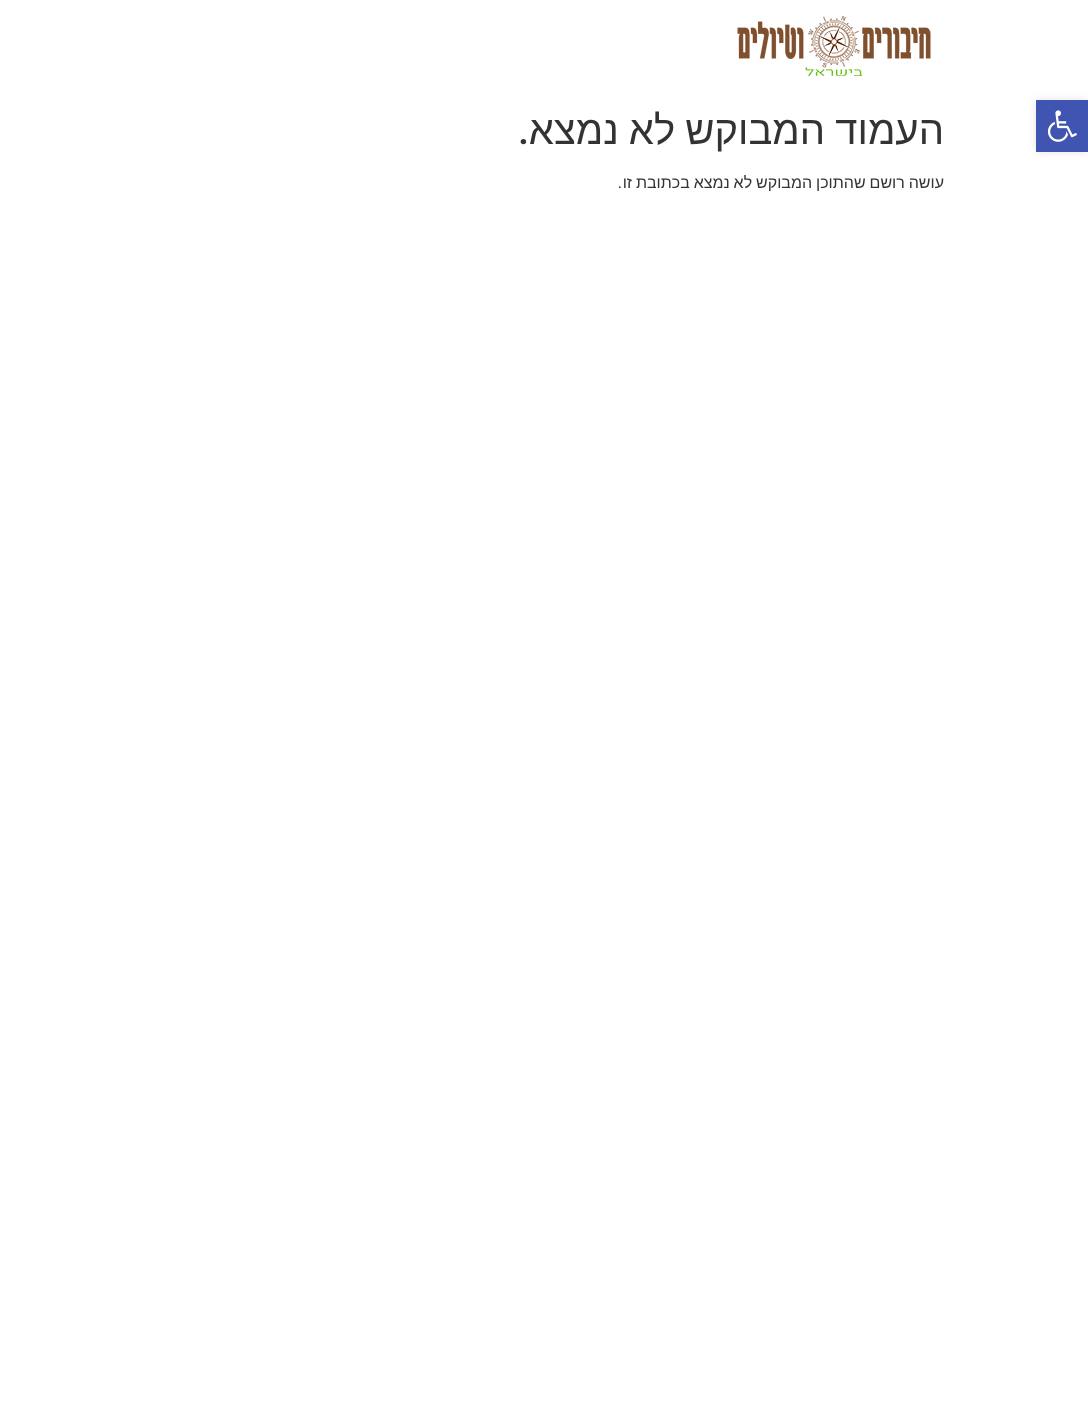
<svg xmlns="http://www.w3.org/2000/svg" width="1088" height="1415">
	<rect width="100%" height="100%" fill="#FFFFFF" />
	<image x="737" y="16" width="194" height="60" href="assets/img1.png" />
	<rect x="1036" y="100" width="52" height="52" fill="#000000" fill-opacity="0.1" filter="blur(5px)" />
	<rect x="1036" y="100" width="52" height="52" fill="#4054B2" />
	<image x="1047" y="110" width="30" height="32" href="assets/img2.png" />
	<text x="944" y="144" word-spacing="-1" font-family="Liberation Sans" font-size="40" direction="rtl" fill="#333333">העמוד המבוקש לא נמצא</text>
	<text x="529" y="144" font-family="Roboto" font-size="40" font-weight="500" direction="rtl" fill="#333333">.</text>
	<text x="944" y="188" word-spacing="-0.5" font-family="Liberation Sans" font-size="16" direction="rtl" fill="#333333">עושה רושם שהתוכן המבוקש לא נמצא בכתובת זו</text>
	<text x="622" y="188" font-family="Roboto" font-size="16" direction="rtl" fill="#333333">.</text>
</svg>
